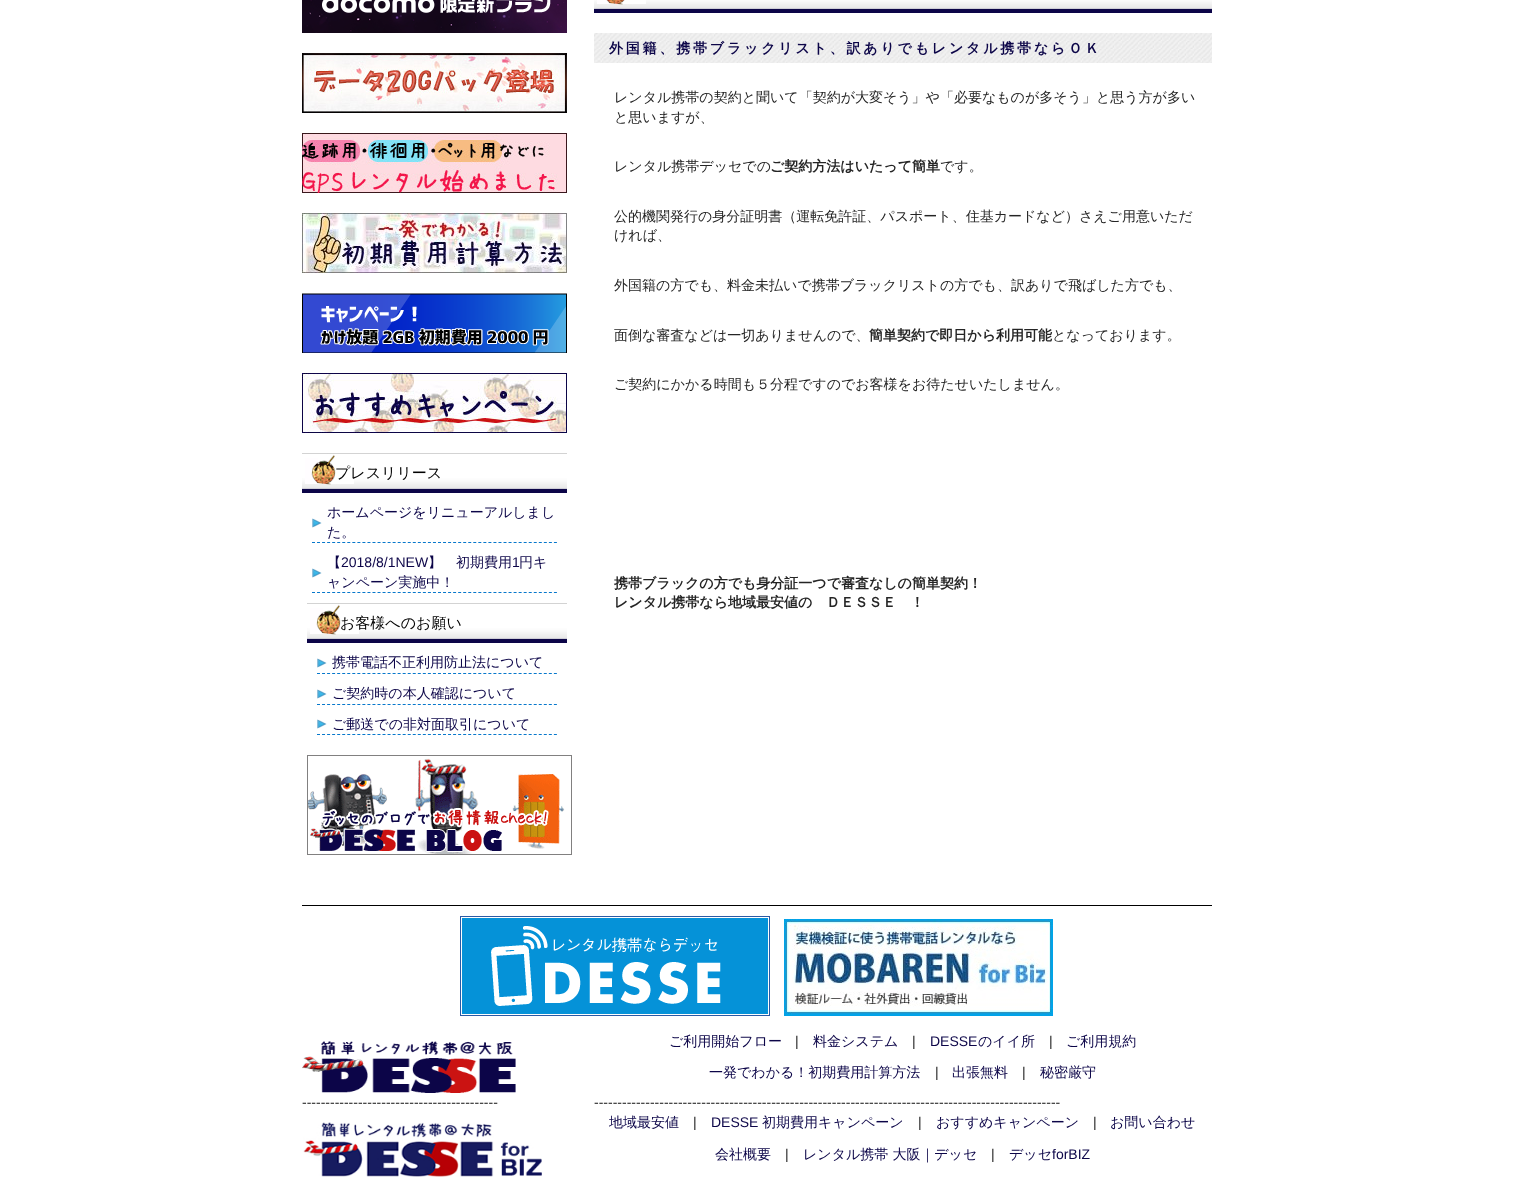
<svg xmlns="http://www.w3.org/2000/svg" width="1513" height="1183">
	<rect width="100%" height="100%" fill="#FFFFFF" />
	<image x="302" y="0" width="265" height="33" href="assets/img1.png" />
	<image x="302" y="53" width="265" height="60" href="assets/img2.png" />
	<image x="302" y="133" width="265" height="60" href="assets/img3.png" />
	<image x="302" y="213" width="265" height="60" href="assets/img4.png" />
	<image x="302" y="293" width="265" height="60" href="assets/img5.png" />
	<image x="302" y="373" width="265" height="60" href="assets/img6.png" />
	<image x="302" y="453" width="265" height="40" href="assets/img7.png" />
	<text x="335" y="478" font-family="WenQuanYi Zen Hei" font-size="15" font-weight="500" fill="#000000">プレスリリース</text>
	<path d="M312 542.5H557" fill="none" stroke="#0778CC" stroke-dasharray="3 2.04" />
	<image x="312" y="518" width="10" height="10" href="assets/img8.png" />
	<g font-family="WenQuanYi Zen Hei" font-size="14" font-weight="500" fill="#0C0548">
		<text x="327" y="517">ホームページをリニューアルしまし</text>
		<text x="327" y="537">た。</text>
	</g>
	<path d="M312 592.5H557" fill="none" stroke="#0778CC" stroke-dasharray="3 2.04" />
	<image x="312" y="568" width="10" height="10" href="assets/img8.png" />
	<text x="327" y="567" font-family="WenQuanYi Zen Hei" font-size="14" font-weight="500" fill="#0C0548">【</text>
	<text x="341" y="567" font-family="Liberation Sans" font-size="14" fill="#0C0548">2018/8/1NEW</text>
	<text x="428" y="567" font-family="WenQuanYi Zen Hei" font-size="14" font-weight="500" fill="#0C0548">】　初期費用</text>
	<text x="512" y="567" font-family="Liberation Sans" font-size="14" fill="#0C0548">1</text>
	<g font-family="WenQuanYi Zen Hei" font-size="14" font-weight="500" fill="#0C0548">
		<text x="519" y="567">円キ</text>
		<text x="327" y="587">ャンペーン実施中！</text>
	</g>
	<image x="307" y="603" width="260" height="40" href="assets/img9.png" />
	<text x="340" y="628" font-family="WenQuanYi Zen Hei" font-size="15" font-weight="500" fill="#000000">お客様へのお願い</text>
	<path d="M317 673.5H557" fill="none" stroke="#0778CC" stroke-dasharray="3 2.04" />
	<image x="317" y="658" width="10" height="10" href="assets/img8.png" />
	<text x="332" y="667" font-family="WenQuanYi Zen Hei" font-size="14" font-weight="500" fill="#0C0548">携帯電話不正利用防止法について</text>
	<path d="M317 704.5H557" fill="none" stroke="#0778CC" stroke-dasharray="3 2.04" />
	<image x="317" y="689" width="10" height="10" href="assets/img8.png" />
	<text x="332" y="698" font-family="WenQuanYi Zen Hei" font-size="14" font-weight="500" fill="#0C0548">ご契約時の本人確認について</text>
	<path d="M317 734.5H557" fill="none" stroke="#0778CC" stroke-dasharray="3 2.04" />
	<image x="317" y="719" width="10" height="10" href="assets/img8.png" />
	<text x="332" y="729" font-family="WenQuanYi Zen Hei" font-size="14" font-weight="500" fill="#0C0548">ご郵送での非対面取引について</text>
	<image x="307" y="755" width="265" height="100" href="assets/img10.png" />
	<image x="594" y="0" width="618" height="13" href="assets/img11.png" />
	<image x="594" y="33" width="618" height="30" href="assets/img12.png" />
	<text x="609" y="53" font-family="WenQuanYi Zen Hei" font-size="14" font-weight="700" letter-spacing="2.8" fill="#0C0548">外国籍、携帯ブラックリスト、訳ありでもレンタル携帯ならＯＫ</text>
	<g font-family="WenQuanYi Zen Hei" font-size="14" font-weight="500" fill="#252525">
		<text x="614" y="102">レンタル携帯の契約と聞いて「契約が大変そう」や「必要なものが多そう」と思う方が多い</text>
		<text x="614" y="122">と思いますが、</text>
		<text x="614" y="171">レンタル携帯デッセでの</text>
	</g>
	<text x="770" y="171" font-family="WenQuanYi Zen Hei" font-size="14" font-weight="700" fill="#252525">ご契約方法はいたって簡単</text>
	<g font-family="WenQuanYi Zen Hei" font-size="14" font-weight="500" fill="#252525">
		<text x="940" y="171">です。</text>
		<text x="614" y="221">公的機関発行の身分証明書（運転免許証、パスポート、住基カードなど）さえご用意いただ</text>
		<text x="614" y="240">ければ、</text>
		<text x="614" y="290">外国籍の方でも、料金未払いで携帯ブラックリストの方でも、訳ありで飛ばした方でも、</text>
		<text x="614" y="340">面倒な審査などは一切ありませんので、</text>
	</g>
	<text x="869" y="340" font-family="WenQuanYi Zen Hei" font-size="14" font-weight="700" fill="#252525">簡単契約で即日から利用可能</text>
	<g font-family="WenQuanYi Zen Hei" font-size="14" font-weight="500" fill="#252525">
		<text x="1052" y="340">となっております。</text>
		<text x="614" y="389">ご契約にかかる時間も５分程ですのでお客様をお待たせいたしません。</text>
	</g>
	<g font-family="WenQuanYi Zen Hei" font-size="14" font-weight="700" fill="#252525">
		<text x="614" y="588">携帯ブラックの方でも身分証一つで審査なしの簡単契約！</text>
		<text x="614" y="607">レンタル携帯なら地域最安値の　ＤＥＳＳＥ　！</text>
	</g>
	<rect x="302" y="905" width="910" height="1" fill="#000000" />
	<image x="460" y="916" width="310" height="100" href="assets/img13.png" />
	<image x="784" y="919" width="269" height="97" href="assets/img14.png" />
	<text x="669" y="1046" font-family="WenQuanYi Zen Hei" font-size="14" font-weight="500" fill="#0C0548">ご利用開始フロー</text>
	<text x="795" y="1046" font-family="Liberation Sans" font-size="14" fill="#252525">|</text>
	<text x="813" y="1046" font-family="WenQuanYi Zen Hei" font-size="14" font-weight="500" fill="#0C0548">料金システム</text>
	<text x="912" y="1046" font-family="Liberation Sans" font-size="14" fill="#252525">|</text>
	<text x="930" y="1046" font-family="Liberation Sans" font-size="14" fill="#0C0548">DESSE</text>
	<text x="978" y="1046" font-family="WenQuanYi Zen Hei" font-size="14" font-weight="500" fill="#0C0548">のイイ所</text>
	<text x="1049" y="1046" font-family="Liberation Sans" font-size="14" fill="#252525">|</text>
	<g font-family="WenQuanYi Zen Hei" font-size="14" font-weight="500" fill="#0C0548">
		<text x="1066" y="1046">ご利用規約</text>
		<text x="709" y="1077">一発でわかる！初期費用計算方法</text>
	</g>
	<text x="935" y="1077" font-family="Liberation Sans" font-size="14" fill="#252525">|</text>
	<text x="952" y="1077" font-family="WenQuanYi Zen Hei" font-size="14" font-weight="500" fill="#0C0548">出張無料</text>
	<text x="1022" y="1077" font-family="Liberation Sans" font-size="14" fill="#252525">|</text>
	<text x="1040" y="1077" font-family="WenQuanYi Zen Hei" font-size="14" font-weight="500" fill="#0C0548">秘密厳守</text>
	<image x="302" y="1041" width="214" height="52" href="assets/img15.png" />
	<text x="302" y="1107" font-family="Liberation Sans" font-size="14" fill="#252525">------------------------------------------</text>
	<image x="303" y="1122" width="239" height="55" href="assets/img16.png" />
	<text x="594" y="1107" font-family="Liberation Sans" font-size="14" fill="#252525">----------------------------------------------------------------------------------------------------</text>
	<text x="609" y="1127" font-family="WenQuanYi Zen Hei" font-size="14" font-weight="500" fill="#0C0548">地域最安値</text>
	<text x="693" y="1127" font-family="Liberation Sans" font-size="14" fill="#252525">|</text>
	<text x="711" y="1127" font-family="Liberation Sans" font-size="14" fill="#0C0548">DESSE</text>
	<text x="762" y="1127" font-family="WenQuanYi Zen Hei" font-size="14" font-weight="500" fill="#0C0548">初期費用キャンペーン</text>
	<text x="918" y="1127" font-family="Liberation Sans" font-size="14" fill="#252525">|</text>
	<text x="936" y="1127" font-family="WenQuanYi Zen Hei" font-size="14" font-weight="500" fill="#0C0548">おすすめキャンペーン</text>
	<text x="1093" y="1127" font-family="Liberation Sans" font-size="14" fill="#252525">|</text>
	<g font-family="WenQuanYi Zen Hei" font-size="14" font-weight="500" fill="#0C0548">
		<text x="1110" y="1127">お問い合わせ</text>
		<text x="715" y="1159">会社概要</text>
	</g>
	<text x="785" y="1159" font-family="Liberation Sans" font-size="14" fill="#252525">|</text>
	<text x="803" y="1159" font-family="WenQuanYi Zen Hei" font-size="14" font-weight="500" fill="#0C0548">レンタル携帯 大阪｜デッセ</text>
	<text x="991" y="1159" font-family="Liberation Sans" font-size="14" fill="#252525">|</text>
	<text x="1009" y="1159" font-family="WenQuanYi Zen Hei" font-size="14" font-weight="500" fill="#0C0548">デッセ</text>
	<text x="1052" y="1159" font-family="Liberation Sans" font-size="14" fill="#0C0548">forBIZ</text>
</svg>
